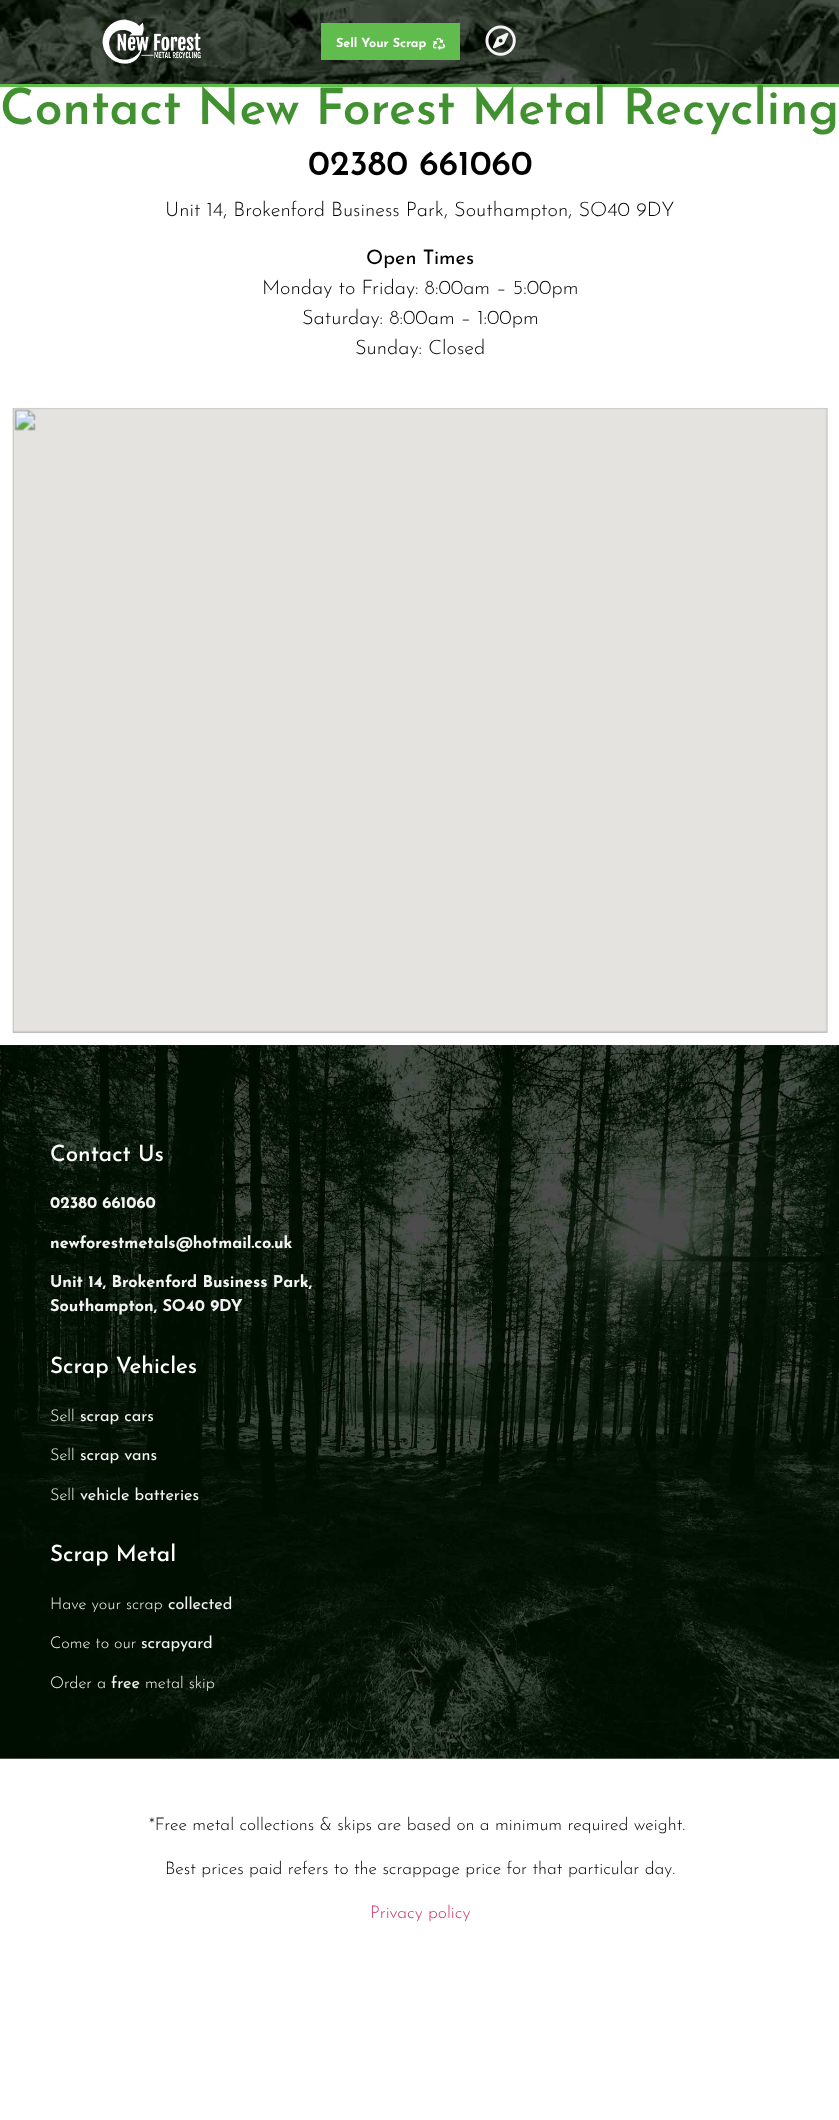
<svg xmlns="http://www.w3.org/2000/svg" width="839" height="2120">
	<rect width="100%" height="100%" fill="#FFFFFF" />
	<image x="0" y="0" width="839" height="84" href="assets/img1.png" />
	<rect x="0" y="84" width="839" height="3" fill="#60BC4D" />
	<image x="102" y="19" width="99" height="45" href="assets/img2.png" />
	<rect x="321" y="23" width="139" height="37" fill="#60BC4D" />
	<text x="336" y="47" font-family="Josefin Sans" font-size="12.5" font-weight="700" fill="#FFFFFF">Sell Your Scrap</text>
	<image x="433" y="38" width="12" height="12" href="assets/img3.png" />
	<image x="485" y="25" width="31" height="31" href="assets/img4.png" />
	<text x="0" y="124" font-family="Josefin Sans" font-size="50" font-weight="600" fill="#419131">Contact New Forest Metal Recycling</text>
	<text x="308" y="175" font-family="Josefin Sans" font-size="35" font-weight="600" fill="#000000">02380 661060</text>
	<text x="165" y="216" font-family="Josefin Sans" font-size="20" font-weight="300" fill="#000000">Unit 14, Brokenford Business Park, Southampton, SO40 9DY</text>
	<text x="366" y="264" font-family="Josefin Sans" font-size="20" fill="#000000">Open Times</text>
	<g font-family="Josefin Sans" font-size="20" font-weight="300" fill="#000000">
		<text x="262" y="294">Monday to Friday: 8:00am – 5:00pm</text>
		<text x="302" y="324">Saturday: 8:00am – 1:00pm</text>
		<text x="355" y="354">Sunday: Closed</text>
	</g>
	<image x="12" y="407" width="816" height="626" href="assets/img5.png" />
	<image x="0" y="1045" width="839" height="714" href="assets/img6.png" />
	<text x="50" y="1161" font-family="Josefin Sans" font-size="22.5" font-weight="500" fill="#FFFFFF">Contact Us</text>
	<g font-family="Josefin Sans" font-size="16.25" font-weight="700" fill="#F4F4F4">
		<text x="50" y="1208">02380 661060</text>
		<text x="50" y="1248">newforestmetals@hotmail.co.uk</text>
		<text x="50" y="1287">Unit 14, Brokenford Business Park,</text>
		<text x="50" y="1311">Southampton, SO40 9DY</text>
	</g>
	<text x="50" y="1373" font-family="Josefin Sans" font-size="22.5" font-weight="500" fill="#FFFFFF">Scrap Vehicles</text>
	<text x="50" y="1421" font-family="Josefin Sans" font-size="16.25" font-weight="300" fill="#F4F4F4">Sell</text>
	<text x="80" y="1421" font-family="Josefin Sans" font-size="16.25" fill="#F4F4F4">scrap cars</text>
	<text x="50" y="1460" font-family="Josefin Sans" font-size="16.25" font-weight="300" fill="#F4F4F4">Sell</text>
	<text x="80" y="1460" font-family="Josefin Sans" font-size="16.25" fill="#F4F4F4">scrap vans</text>
	<text x="50" y="1500" font-family="Josefin Sans" font-size="16.25" font-weight="300" fill="#F4F4F4">Sell</text>
	<text x="80" y="1500" font-family="Josefin Sans" font-size="16.25" fill="#F4F4F4">vehicle batteries</text>
	<text x="50" y="1561" font-family="Josefin Sans" font-size="22.5" font-weight="500" fill="#FFFFFF">Scrap Metal</text>
	<text x="50" y="1609" font-family="Josefin Sans" font-size="16.25" font-weight="300" fill="#F4F4F4">Have your scrap</text>
	<text x="168" y="1609" font-family="Josefin Sans" font-size="16.25" fill="#F4F4F4">collected</text>
	<text x="50" y="1648" font-family="Josefin Sans" font-size="16.25" font-weight="300" fill="#F4F4F4">Come to our</text>
	<text x="141" y="1648" font-family="Josefin Sans" font-size="16.25" fill="#F4F4F4">scrapyard</text>
	<text x="50" y="1688" font-family="Josefin Sans" font-size="16.25" font-weight="300" fill="#F4F4F4">Order a</text>
	<text x="111" y="1688" font-family="Josefin Sans" font-size="16.25" fill="#F4F4F4">free</text>
	<text x="145" y="1688" font-family="Josefin Sans" font-size="16.25" font-weight="300" fill="#F4F4F4">metal skip</text>
	<g font-family="Josefin Sans" font-size="17.5" font-weight="300" fill="#000000">
		<text x="149" y="1830">*Free metal collections &amp; skips are based on a minimum required weight.</text>
		<text x="165" y="1874">Best prices paid refers to the scrappage price for that particular day.</text>
	</g>
	<text x="370" y="1918" font-family="Josefin Sans" font-size="17.5" font-weight="300" fill="#CC3366">Privacy policy</text>
</svg>
